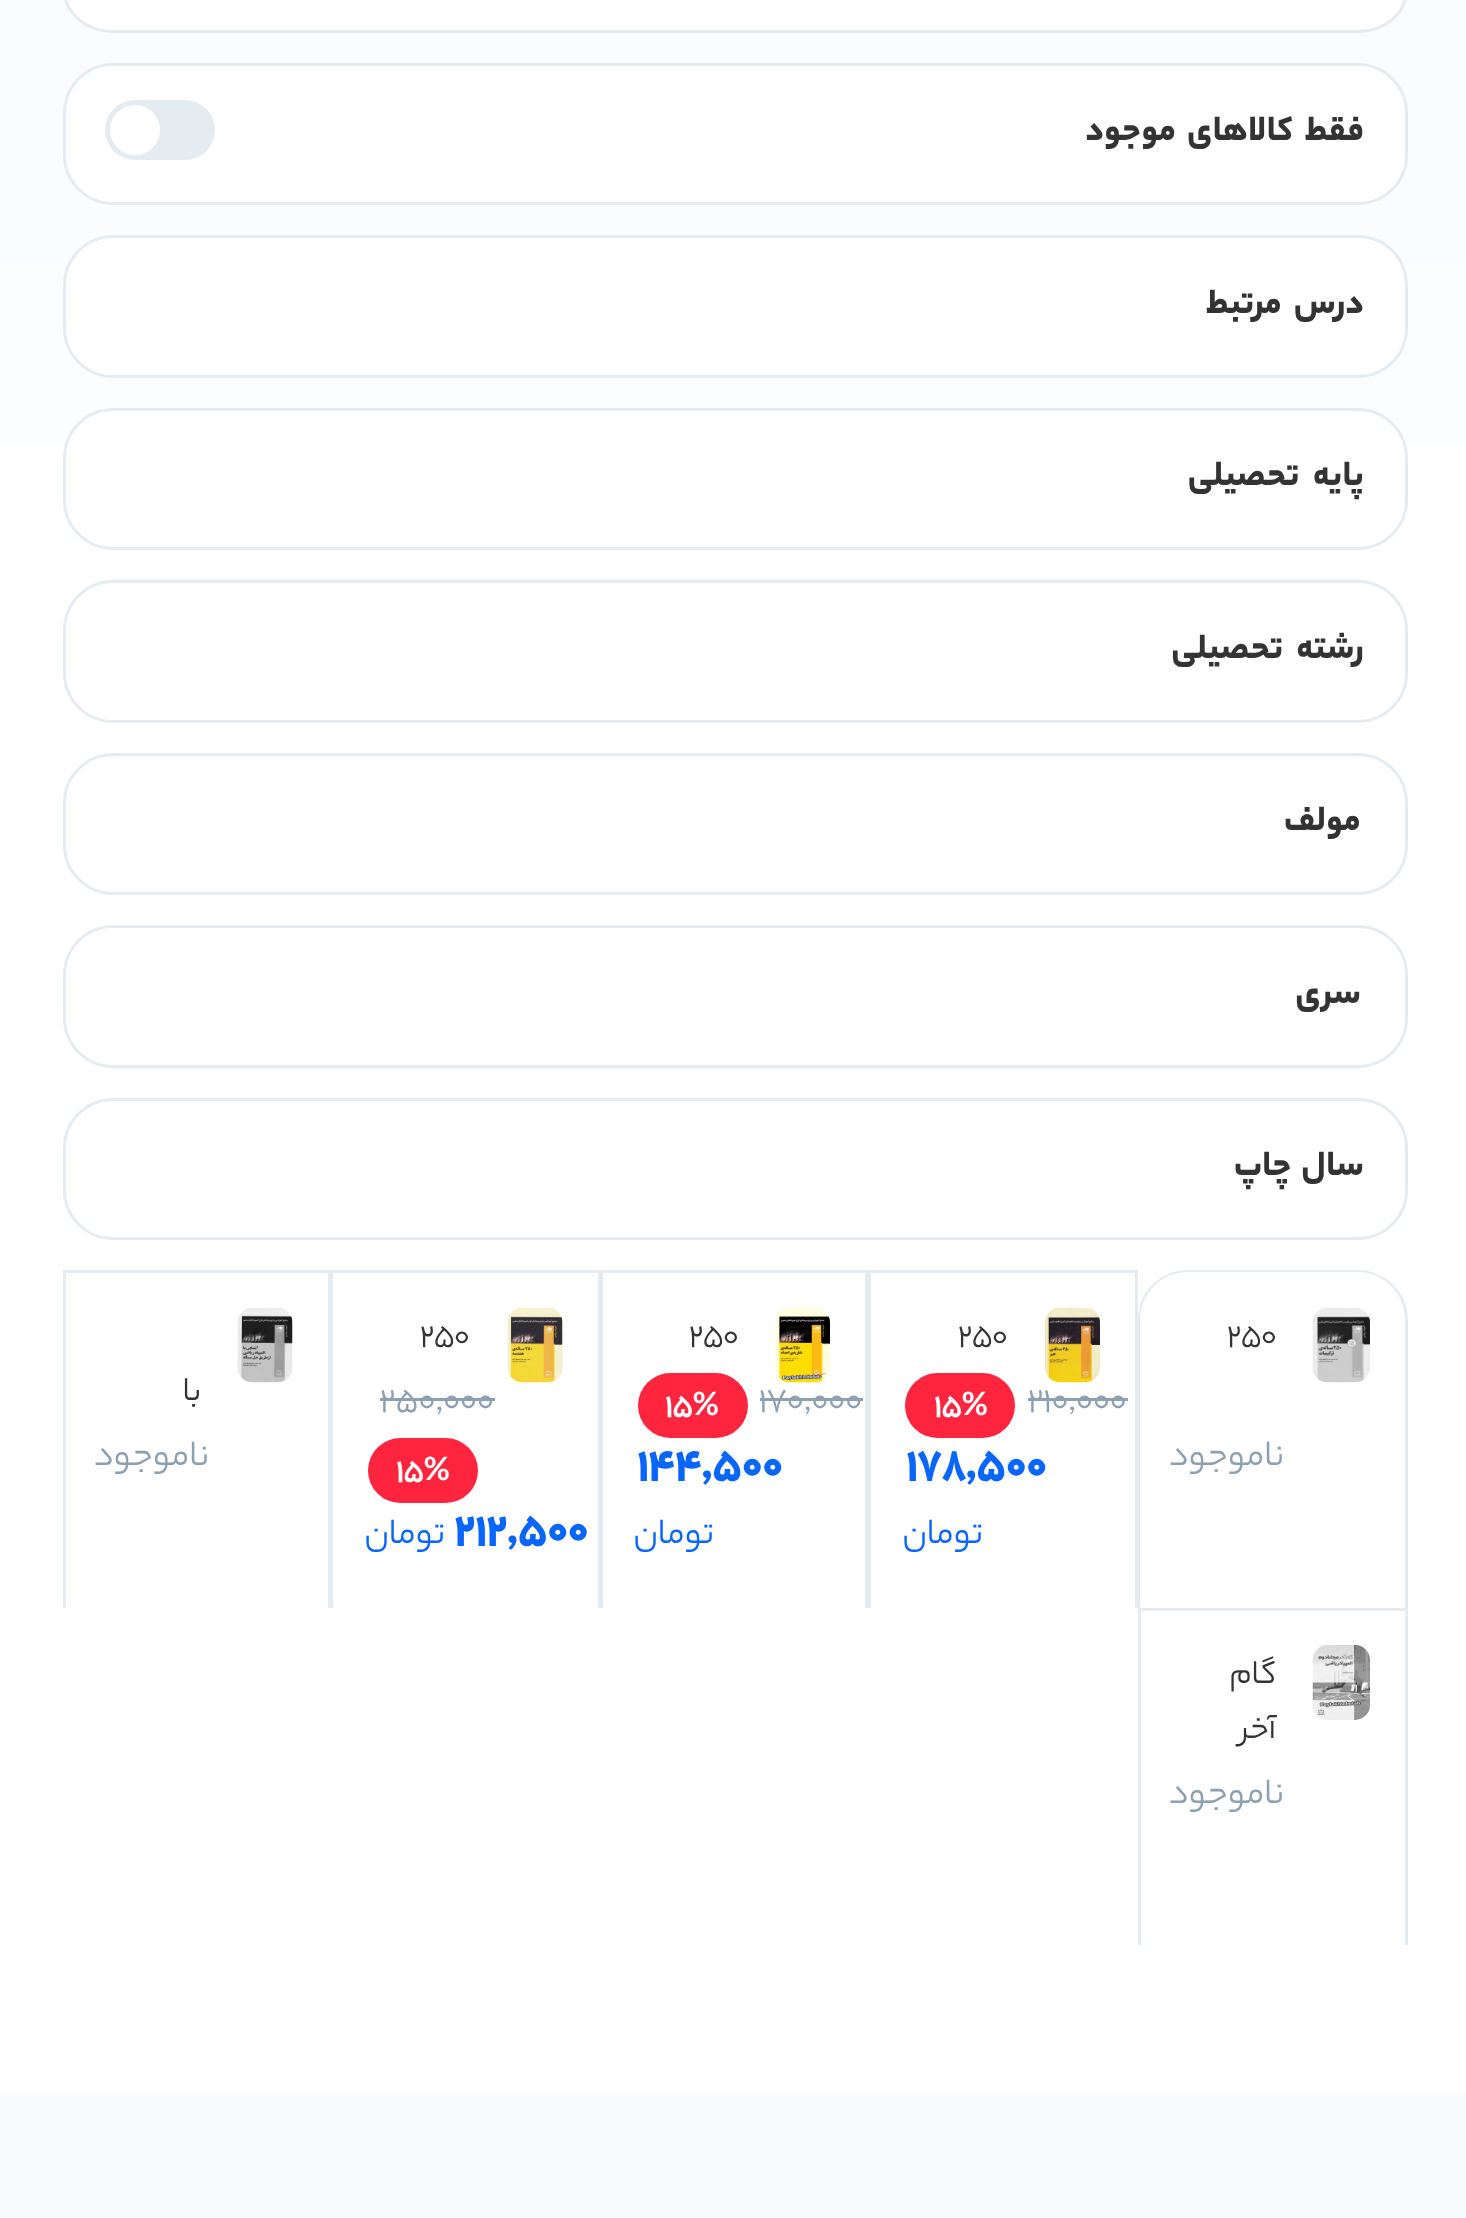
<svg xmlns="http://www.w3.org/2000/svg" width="1466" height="2218">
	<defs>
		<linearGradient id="g1" gradientUnits="userSpaceOnUse" x1="734" y1="-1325" x2="734" y2="800"><stop offset="0" stop-color="#F0F5FC" /><stop offset="1" stop-color="#FFFFFF" /></linearGradient>
	</defs>
	<rect width="100%" height="100%" fill="#FFFFFF" />
	<rect x="0" y="0" width="1466" height="446" fill="url(#g1)" />
	<rect x="64.5" y="-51.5" width="1342" height="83" rx="48.5" fill="#FFFFFF" stroke="#E5ECF1" stroke-width="3" />
	<rect x="64.5" y="64.5" width="1342" height="139" rx="48.5" fill="#FFFFFF" stroke="#E5ECF1" stroke-width="3" />
	<text x="1364" y="140" word-spacing="6" font-family="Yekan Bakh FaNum" font-size="37.5" font-weight="900" letter-spacing="-0.75" direction="rtl" fill="#333333">فقط کالاهای موجود</text>
	<rect x="105" y="100" width="110" height="60" rx="30" fill="#E5ECF1" />
	<circle cx="135" cy="130" r="25" fill="#FFFFFF" />
	<rect x="64.5" y="236.5" width="1342" height="140" rx="48.5" fill="#FFFFFF" stroke="#E5ECF1" stroke-width="3" />
	<text x="1364" y="313" word-spacing="7" font-family="Yekan Bakh FaNum" font-size="37.5" font-weight="900" letter-spacing="-0.75" direction="rtl" fill="#333333">درس مرتبط</text>
	<rect x="64.5" y="409.5" width="1342" height="139" rx="48.5" fill="#FFFFFF" stroke="#E5ECF1" stroke-width="3" />
	<text x="1364" y="485" word-spacing="8" font-family="Yekan Bakh FaNum" font-size="37.5" font-weight="900" letter-spacing="-0.75" direction="rtl" fill="#333333">پایه تحصیلی</text>
	<rect x="64.5" y="581.5" width="1342" height="140" rx="48.5" fill="none" stroke="#E5ECF1" stroke-width="3" />
	<text x="1364" y="658" word-spacing="8" font-family="Yekan Bakh FaNum" font-size="37.5" font-weight="900" letter-spacing="-0.75" direction="rtl" fill="#333333">رشته تحصیلی</text>
	<rect x="64.5" y="754.5" width="1342" height="139" rx="48.5" fill="none" stroke="#E5ECF1" stroke-width="3" />
	<text x="1361" y="830" font-family="Yekan Bakh FaNum" font-size="37.5" font-weight="900" letter-spacing="-0.75" direction="rtl" fill="#333333">مولف</text>
	<rect x="64.5" y="926.5" width="1342" height="140" rx="48.5" fill="none" stroke="#E5ECF1" stroke-width="3" />
	<text x="1361" y="1003" font-family="Yekan Bakh FaNum" font-size="37.5" font-weight="900" letter-spacing="-0.75" direction="rtl" fill="#333333">سری</text>
	<rect x="64.5" y="1099.5" width="1342" height="139" rx="48.5" fill="none" stroke="#E5ECF1" stroke-width="3" />
	<text x="1364" y="1175" word-spacing="5" font-family="Yekan Bakh FaNum" font-size="37.5" font-weight="900" letter-spacing="-0.75" direction="rtl" fill="#333333">سال چاپ</text>
	<path d="M1188 1270H1358C1385 1270 1408 1292 1408 1320V1608H1138V1320C1138 1292 1160 1270 1188 1270ZM1188 1272H1358C1384 1272 1405 1294 1405 1320V1608H1140V1320C1140 1294 1161 1272 1188 1272Z" fill="#E5ECF1" fill-rule="evenodd" />
	<image x="1312" y="1307" width="58" height="76" href="assets/img1.png" />
	<text x="1227" y="1345" font-family="Yekan Bakh FaNum" font-size="35" letter-spacing="-1" fill="#333333">250</text>
	<text x="1284" y="1465" font-family="Yekan Bakh FaNum" font-size="37.5" letter-spacing="-0.75" direction="rtl" fill="#8CA0B2">ناموجود</text>
	<rect x="63" y="1270" width="1075" height="3" fill="#E5ECF1" />
	<rect x="1135" y="1270" width="3" height="338" fill="#E5ECF1" />
	<rect x="865" y="1270" width="6" height="338" fill="#E5ECF1" />
	<image x="1045" y="1307" width="55" height="76" href="assets/img2.png" />
	<text x="958" y="1345" font-family="Yekan Bakh FaNum" font-size="35" letter-spacing="-1" fill="#333333">250</text>
	<text x="1028" y="1410" font-family="Yekan Bakh FaNum" font-size="37.5" fill="#8CA0B2">210,000</text>
	<rect x="1028" y="1398" width="100" height="3" fill="#8CA0B2" />
	<rect x="905" y="1373" width="110" height="65" rx="32.5" fill="#FF253F" />
	<text x="934" y="1415" font-family="Yekan Bakh FaNum" font-size="35" font-weight="700" letter-spacing="-1" fill="#FFFFFF">15%</text>
	<text x="906" y="1478" font-family="Yekan Bakh FaNum" font-size="50" font-weight="900" letter-spacing="-1" fill="#0865FE">178,500</text>
	<text x="983" y="1543" font-family="Yekan Bakh FaNum" font-size="37.5" letter-spacing="-0.75" direction="rtl" fill="#0865FE">تومان</text>
	<rect x="598" y="1270" width="5" height="338" fill="#E5ECF1" />
	<image x="775" y="1307" width="55" height="76" href="assets/img3.png" />
	<text x="689" y="1345" font-family="Yekan Bakh FaNum" font-size="35" letter-spacing="-1" fill="#333333">250</text>
	<text x="759" y="1410" font-family="Yekan Bakh FaNum" font-size="37.5" fill="#8CA0B2">170,000</text>
	<rect x="760" y="1398" width="103" height="3" fill="#8CA0B2" />
	<rect x="638" y="1373" width="110" height="65" rx="32.5" fill="#FF253F" />
	<text x="665" y="1415" font-family="Yekan Bakh FaNum" font-size="35" font-weight="700" letter-spacing="-1" fill="#FFFFFF">15%</text>
	<text x="637" y="1478" font-family="Yekan Bakh FaNum" font-size="50" font-weight="900" letter-spacing="-1" fill="#0865FE">144,500</text>
	<text x="714" y="1543" font-family="Yekan Bakh FaNum" font-size="37.5" letter-spacing="-0.75" direction="rtl" fill="#0865FE">تومان</text>
	<rect x="328" y="1270" width="5" height="338" fill="#E5ECF1" />
	<image x="507" y="1307" width="56" height="76" href="assets/img4.png" />
	<text x="420" y="1345" font-family="Yekan Bakh FaNum" font-size="35" letter-spacing="-1" fill="#333333">250</text>
	<text x="380" y="1410" font-family="Yekan Bakh FaNum" font-size="37.5" fill="#8CA0B2">250,000</text>
	<rect x="380" y="1398" width="115" height="3" fill="#8CA0B2" />
	<rect x="368" y="1438" width="110" height="65" rx="32.5" fill="#FF253F" />
	<text x="396" y="1480" font-family="Yekan Bakh FaNum" font-size="35" font-weight="700" letter-spacing="-1" fill="#FFFFFF">15%</text>
	<text x="454" y="1543" font-family="Yekan Bakh FaNum" font-size="50" font-weight="900" letter-spacing="-1" fill="#0865FE">212,500</text>
	<text x="445" y="1543" font-family="Yekan Bakh FaNum" font-size="37.5" letter-spacing="-0.75" direction="rtl" fill="#0865FE">تومان</text>
	<rect x="63" y="1270" width="3" height="338" fill="#E5ECF1" />
	<image x="237" y="1307" width="56" height="76" href="assets/img5.png" />
	<text x="201" y="1400" font-family="Yekan Bakh FaNum" font-size="35" letter-spacing="-1" direction="rtl" fill="#333333">با</text>
	<text x="209" y="1465" font-family="Yekan Bakh FaNum" font-size="37.5" letter-spacing="-0.75" direction="rtl" fill="#8CA0B2">ناموجود</text>
	<rect x="1138" y="1608" width="270" height="3" fill="#E5ECF1" />
	<rect x="1405" y="1608" width="3" height="337" fill="#E5ECF1" />
	<rect x="1138" y="1608" width="3" height="337" fill="#E5ECF1" />
	<image x="1312" y="1645" width="58" height="75" href="assets/img6.png" />
	<g font-family="Yekan Bakh FaNum" font-size="35" letter-spacing="-1" direction="rtl" fill="#333333">
		<text x="1276" y="1683">گام</text>
		<text x="1276" y="1738">آخر</text>
	</g>
	<text x="1284" y="1803" font-family="Yekan Bakh FaNum" font-size="37.5" letter-spacing="-0.75" direction="rtl" fill="#8CA0B2">ناموجود</text>
	<rect x="0" y="2095" width="1466" height="123" fill="#F8FAFC" />
</svg>
